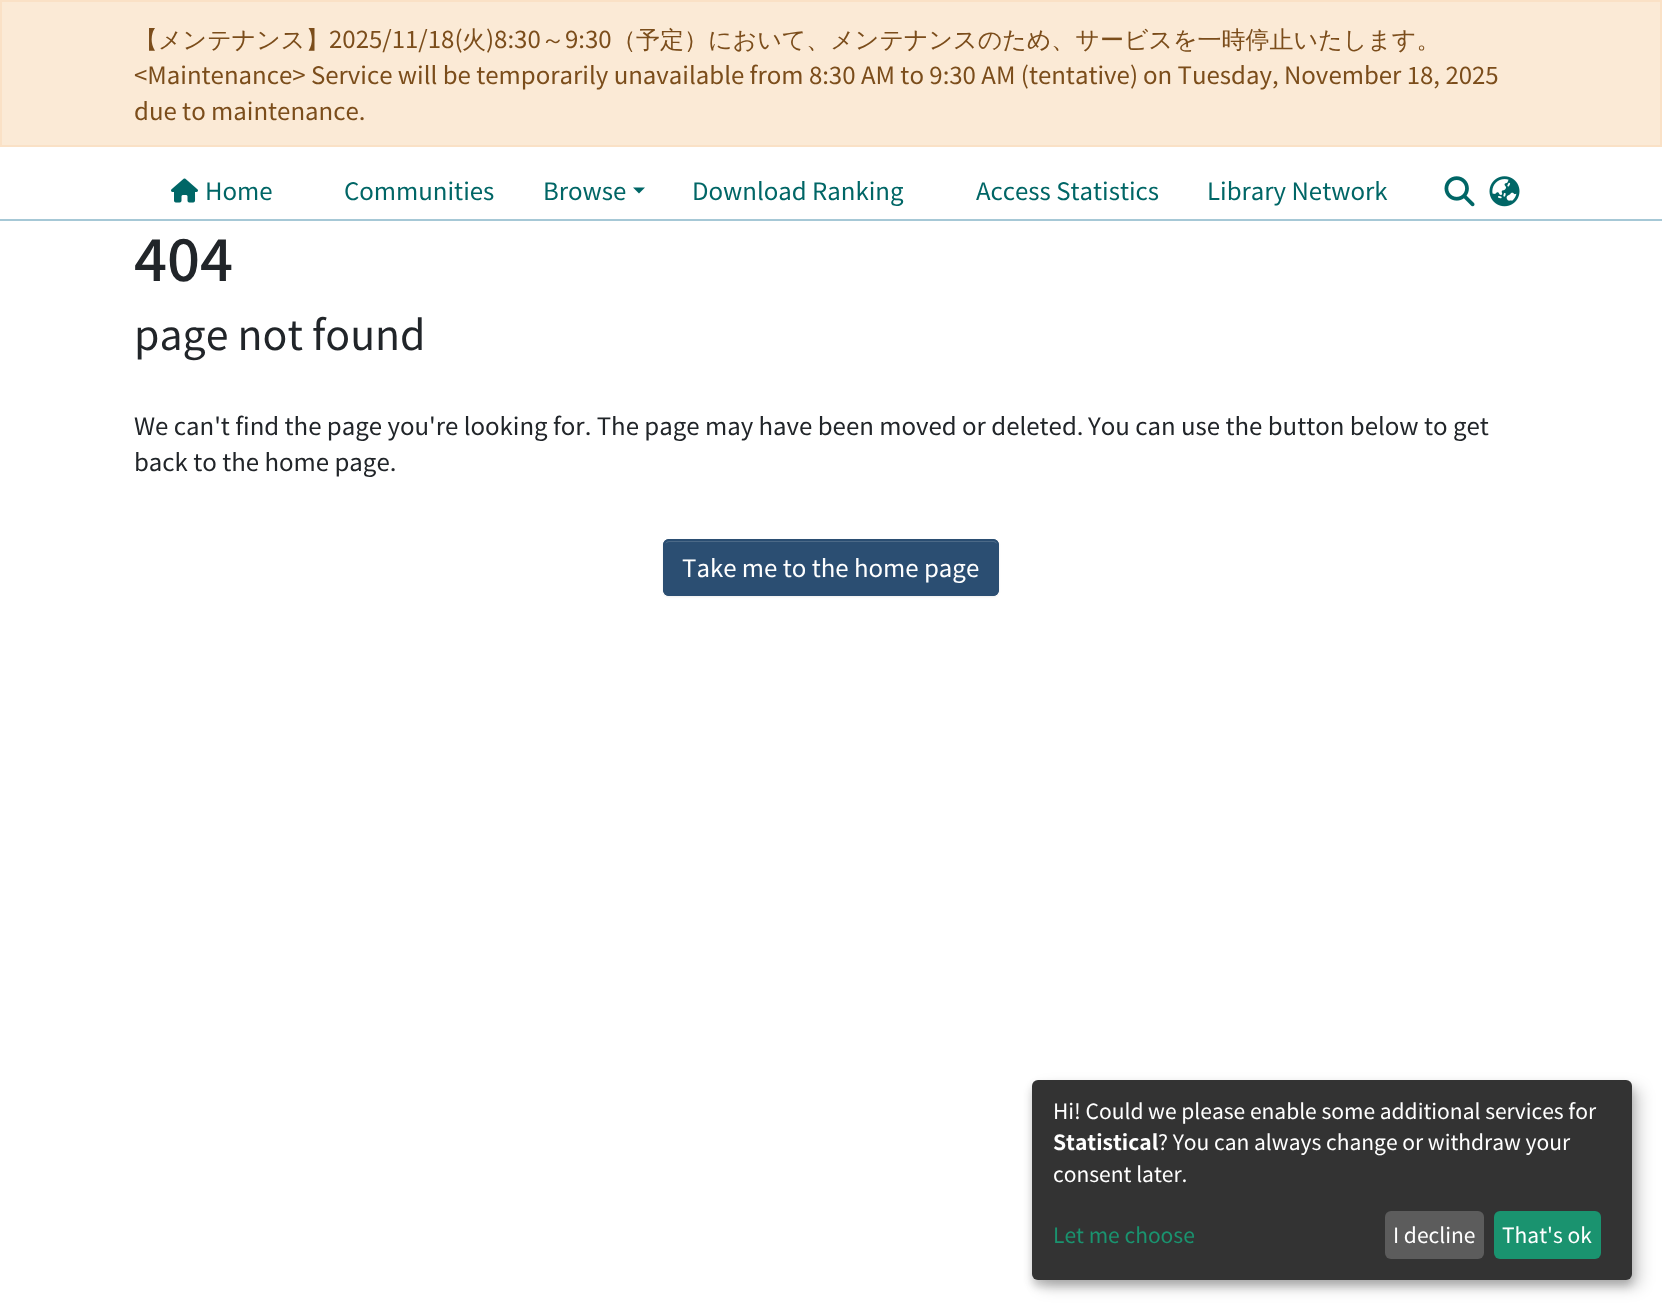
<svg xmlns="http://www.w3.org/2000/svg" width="1662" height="1309">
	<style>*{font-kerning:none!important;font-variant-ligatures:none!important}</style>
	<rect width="100%" height="100%" fill="#FFFFFF" />
	<rect x="1" y="1" width="1660" height="145" fill="#FBEAD6" stroke="#FAE1C6" stroke-width="2" />
	<text x="134" y="48" font-family="WenQuanYi Zen Hei" font-size="24" font-weight="500" fill="#7B4D1B">【メンテナンス】</text>
	<text x="329" y="48" font-family="Noto Sans JP" font-size="24" fill="#7B4D1B">2025/11/18(</text>
	<text x="462" y="48" font-family="WenQuanYi Zen Hei" font-size="24" font-weight="500" fill="#7B4D1B">火</text>
	<text x="486" y="48" font-family="Noto Sans JP" font-size="24" fill="#7B4D1B">)8:30</text>
	<text x="541" y="48" font-family="WenQuanYi Zen Hei" font-size="24" font-weight="500" fill="#7B4D1B">～</text>
	<text x="565" y="48" font-family="Noto Sans JP" font-size="24" fill="#7B4D1B">9:30</text>
	<text x="612" y="48" font-family="WenQuanYi Zen Hei" font-size="24" font-weight="500" fill="#7B4D1B">（予定）において、メンテナンスのため、サービスを一時停止いたします。</text>
	<g font-family="Noto Sans JP" font-size="24" fill="#7B4D1B">
		<text x="134" y="84">&lt;Maintenance&gt; Service will be temporarily unavailable from 8:30 AM to 9:30 AM (tentative)</text>
		<text x="1143" y="84">on Tuesday, November 18, 2025</text>
		<text x="134" y="120">due to maintenance.</text>
	</g>
	<rect x="0" y="219" width="1662" height="2" fill="#A6C8D6" />
	<image x="171" y="178" width="27" height="25" href="assets/img1.png" />
	<g font-family="Noto Sans JP" font-size="24" fill="#006666">
		<text x="205" y="200">Home</text>
		<text x="344" y="200">Communities</text>
		<text x="543" y="200">Browse</text>
	</g>
	<path d="M633 187.5H645L639 193.5Z" fill="#006666" />
	<g font-family="Noto Sans JP" font-size="24" fill="#006666">
		<text x="692" y="200">Download Ranking</text>
		<text x="976" y="200">Access Statistics</text>
		<text x="1207" y="200">Library Network</text>
	</g>
	<image x="1444" y="176" width="31" height="31" href="assets/img2.png" />
	<image x="1489" y="176" width="31" height="31" href="assets/img3.png" />
	<text x="134" y="281" font-family="Noto Sans JP" font-size="58" font-weight="500" fill="#212529">404</text>
	<text x="134" y="350" font-family="Noto Sans JP" font-size="41" fill="#212529">page not found</text>
	<g font-family="Noto Sans JP" font-size="24" fill="#212529">
		<text x="134" y="435">We can't find the page you're looking for. The page may have been moved or deleted.</text>
		<text x="1088" y="435">You can use the button below to get</text>
		<text x="134" y="471">back to the home page.</text>
	</g>
	<rect x="663" y="540" width="336" height="57" rx="6" fill="#000000" fill-opacity="0.07" filter="blur(1px)" />
	<rect x="663" y="539" width="336" height="57" rx="6" fill="#2B4E72" />
	<path d="M669 542H993C995 542 998 544 998 546V545C998 542 996 540 993 540H670C668 540 666 542 665 544C666 543 668 542 669 542Z" fill="#4B6987" />
	<rect x="664" y="540" width="334" height="55" rx="5" fill="none" stroke="#2B4E72" stroke-width="2" />
	<text x="682" y="577" font-family="Noto Sans JP" font-size="24" fill="#FFFFFF">Take me to the home page</text>
	<rect x="1040" y="1088" width="600" height="199" rx="6" fill="#000000" fill-opacity="0.19" filter="blur(7.5px)" />
	<rect x="1032" y="1086" width="600" height="200" rx="6" fill="#000000" fill-opacity="0.2" filter="blur(4.5px)" />
	<rect x="1032" y="1080" width="600" height="200" rx="6" fill="#333333" />
	<text x="1053" y="1119" font-family="Noto Sans JP" font-size="21" fill="#FFFFFF">Hi! Could we please enable some additional services for</text>
	<text x="1053" y="1150" font-family="Noto Sans JP" font-size="21" font-weight="700" fill="#FFFFFF">Statistical</text>
	<g font-family="Noto Sans JP" font-size="21" fill="#FFFFFF">
		<text x="1158" y="1150">? You can always change or withdraw your</text>
		<text x="1053" y="1182">consent later.</text>
	</g>
	<text x="1053" y="1243" font-family="Noto Sans JP" font-size="21" fill="#1A936F">Let me choose</text>
	<rect x="1385" y="1211" width="99" height="48" rx="6" fill="#5C5C5C" />
	<text x="1393" y="1243" font-family="Noto Sans JP" font-size="21" fill="#FFFFFF">I decline</text>
	<rect x="1494" y="1211" width="107" height="48" rx="6" fill="#1A936F" />
	<text x="1502" y="1243" font-family="Noto Sans JP" font-size="21" fill="#FFFFFF">That's ok</text>
</svg>
